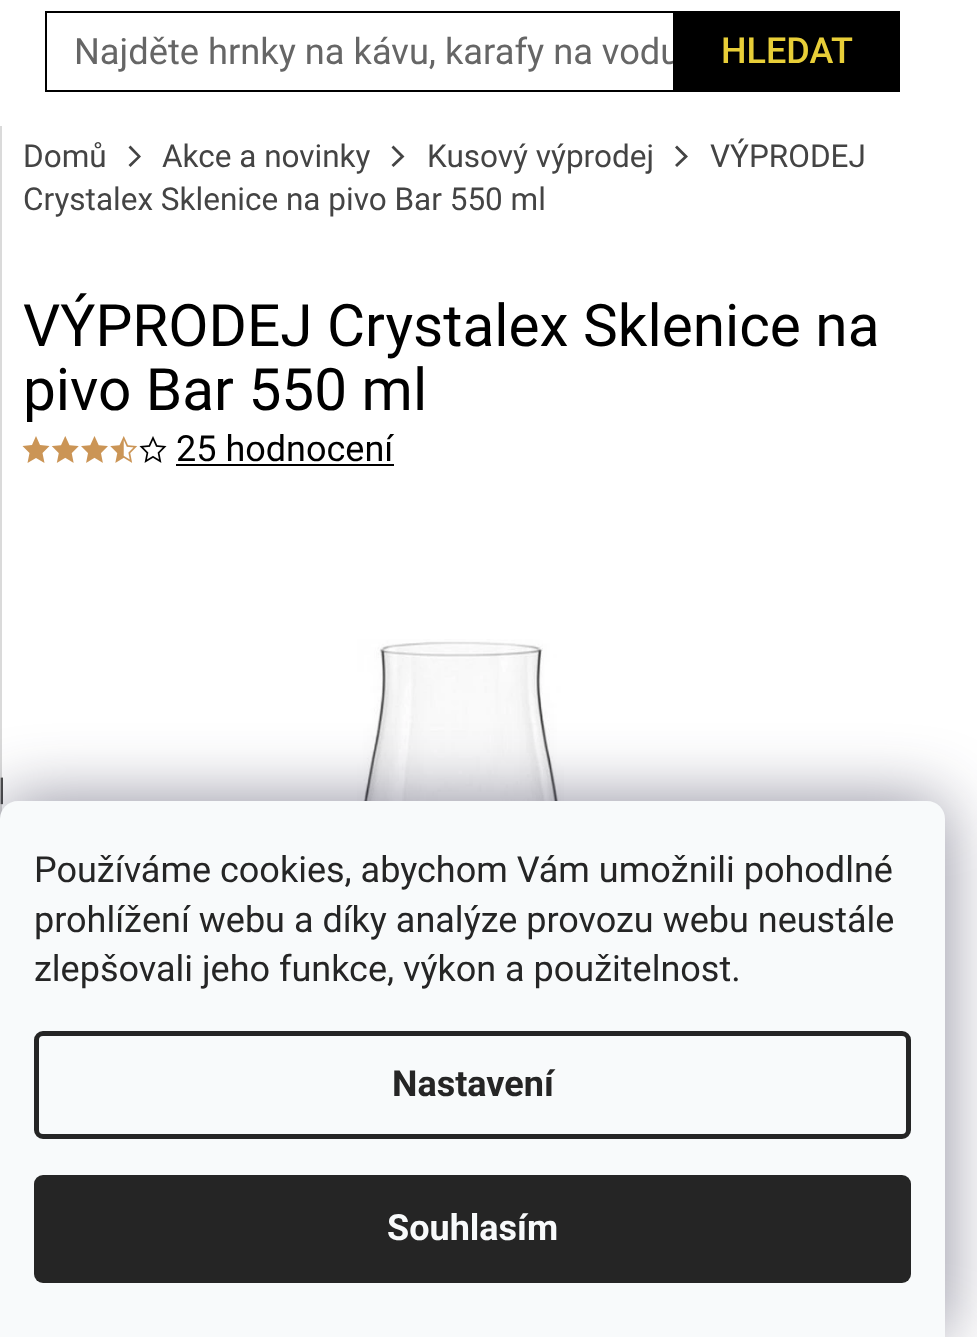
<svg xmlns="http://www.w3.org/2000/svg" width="977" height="1337">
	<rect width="100%" height="100%" fill="#FFFFFF" />
	<rect x="46" y="12" width="853" height="79" fill="none" stroke="#000000" stroke-width="2" />
	<text x="74" y="64" font-family="Roboto" font-size="36.25" fill="#666666">Najděte hrnky na kávu, karafy na vodu</text>
	<rect x="673" y="13" width="225" height="77" fill="#000000" />
	<text x="721" y="63" font-family="Roboto" font-size="36" font-weight="500" fill="#E8CE38">HLEDAT</text>
	<rect x="0" y="126" width="2" height="693" fill="#DADADA" />
	<text x="-2" y="800" font-family="Roboto" font-size="31.5" fill="#4D4D4D">|</text>
	<text x="23" y="167" font-family="Roboto" font-size="31.5" fill="#444444">Domů</text>
	<path d="M130.5 167L128.5 165L137.5 156.5L128.5 147.5L130.5 145.5L141 156.5Z" fill="#444444" />
	<text x="162" y="167" font-family="Roboto" font-size="31.5" fill="#444444">Akce a novinky</text>
	<path d="M393.5 167L391.5 165L400.5 156.5L391.5 147.5L393.5 145.5L404.5 156.5Z" fill="#444444" />
	<text x="427" y="167" font-family="Roboto" font-size="31.5" fill="#444444">Kusový výprodej</text>
	<path d="M677 167L675 165L684 156.5L675 147.5L677 145.5L688 156.5Z" fill="#444444" />
	<g font-family="Roboto" font-size="31.5" fill="#444444">
		<text x="710" y="167">VÝPRODEJ</text>
		<text x="23" y="210">Crystalex Sklenice na pivo Bar 550 ml</text>
	</g>
	<g font-family="Roboto" font-size="58.5" fill="#000000">
		<text x="23" y="346">VÝPRODEJ Crystalex Sklenice na</text>
		<text x="23" y="410">pivo Bar 550 ml</text>
	</g>
	<path d="M36 436L32 445L22.5 446L29.5 453L27.5 463L36 458L44.5 463L42.5 453L49.5 446L40 445Z" fill="#CB9556" />
	<image x="51" y="436" width="28" height="27" href="assets/img1.png" />
	<image x="81" y="436" width="27" height="27" href="assets/img2.png" />
	<image x="110" y="436" width="28" height="27" href="assets/img3.png" />
	<image x="139" y="436" width="28" height="27" href="assets/img4.png" />
	<text x="176" y="461" font-family="Roboto" font-size="36" fill="#000000">25 hodnocení</text>
	<rect x="176" y="464" width="218" height="2" fill="#000000" />
	<image x="357" y="639" width="207" height="162" href="assets/img5.png" />
	<rect x="0" y="801" width="945" height="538" rx="18" fill="#1B1939" fill-opacity="0.5" filter="blur(34px)" />
	<path d="M18 801H927C937 801 945 809 945 819V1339H0V819C0 809 8 801 18 801Z" fill="#F8FAFB" />
	<g font-family="Roboto" font-size="36" fill="#252525">
		<text x="34" y="882">Používáme cookies, abychom Vám umožnili pohodlné</text>
		<text x="34" y="932">prohlížení webu a díky analýze provozu webu neustále</text>
		<text x="34" y="981">zlepšovali jeho funkce, výkon a použitelnost.</text>
	</g>
	<rect x="36.5" y="1033.5" width="872" height="103" rx="6.5" fill="none" stroke="#252525" stroke-width="5" />
	<text x="392" y="1096" font-family="Roboto" font-size="36" font-weight="700" fill="#252525">Nastavení</text>
	<rect x="34" y="1175" width="877" height="108" rx="9" fill="#252525" />
	<text x="387" y="1240" font-family="Roboto" font-size="36" font-weight="700" fill="#F8FAFB">Souhlasím</text>
</svg>
